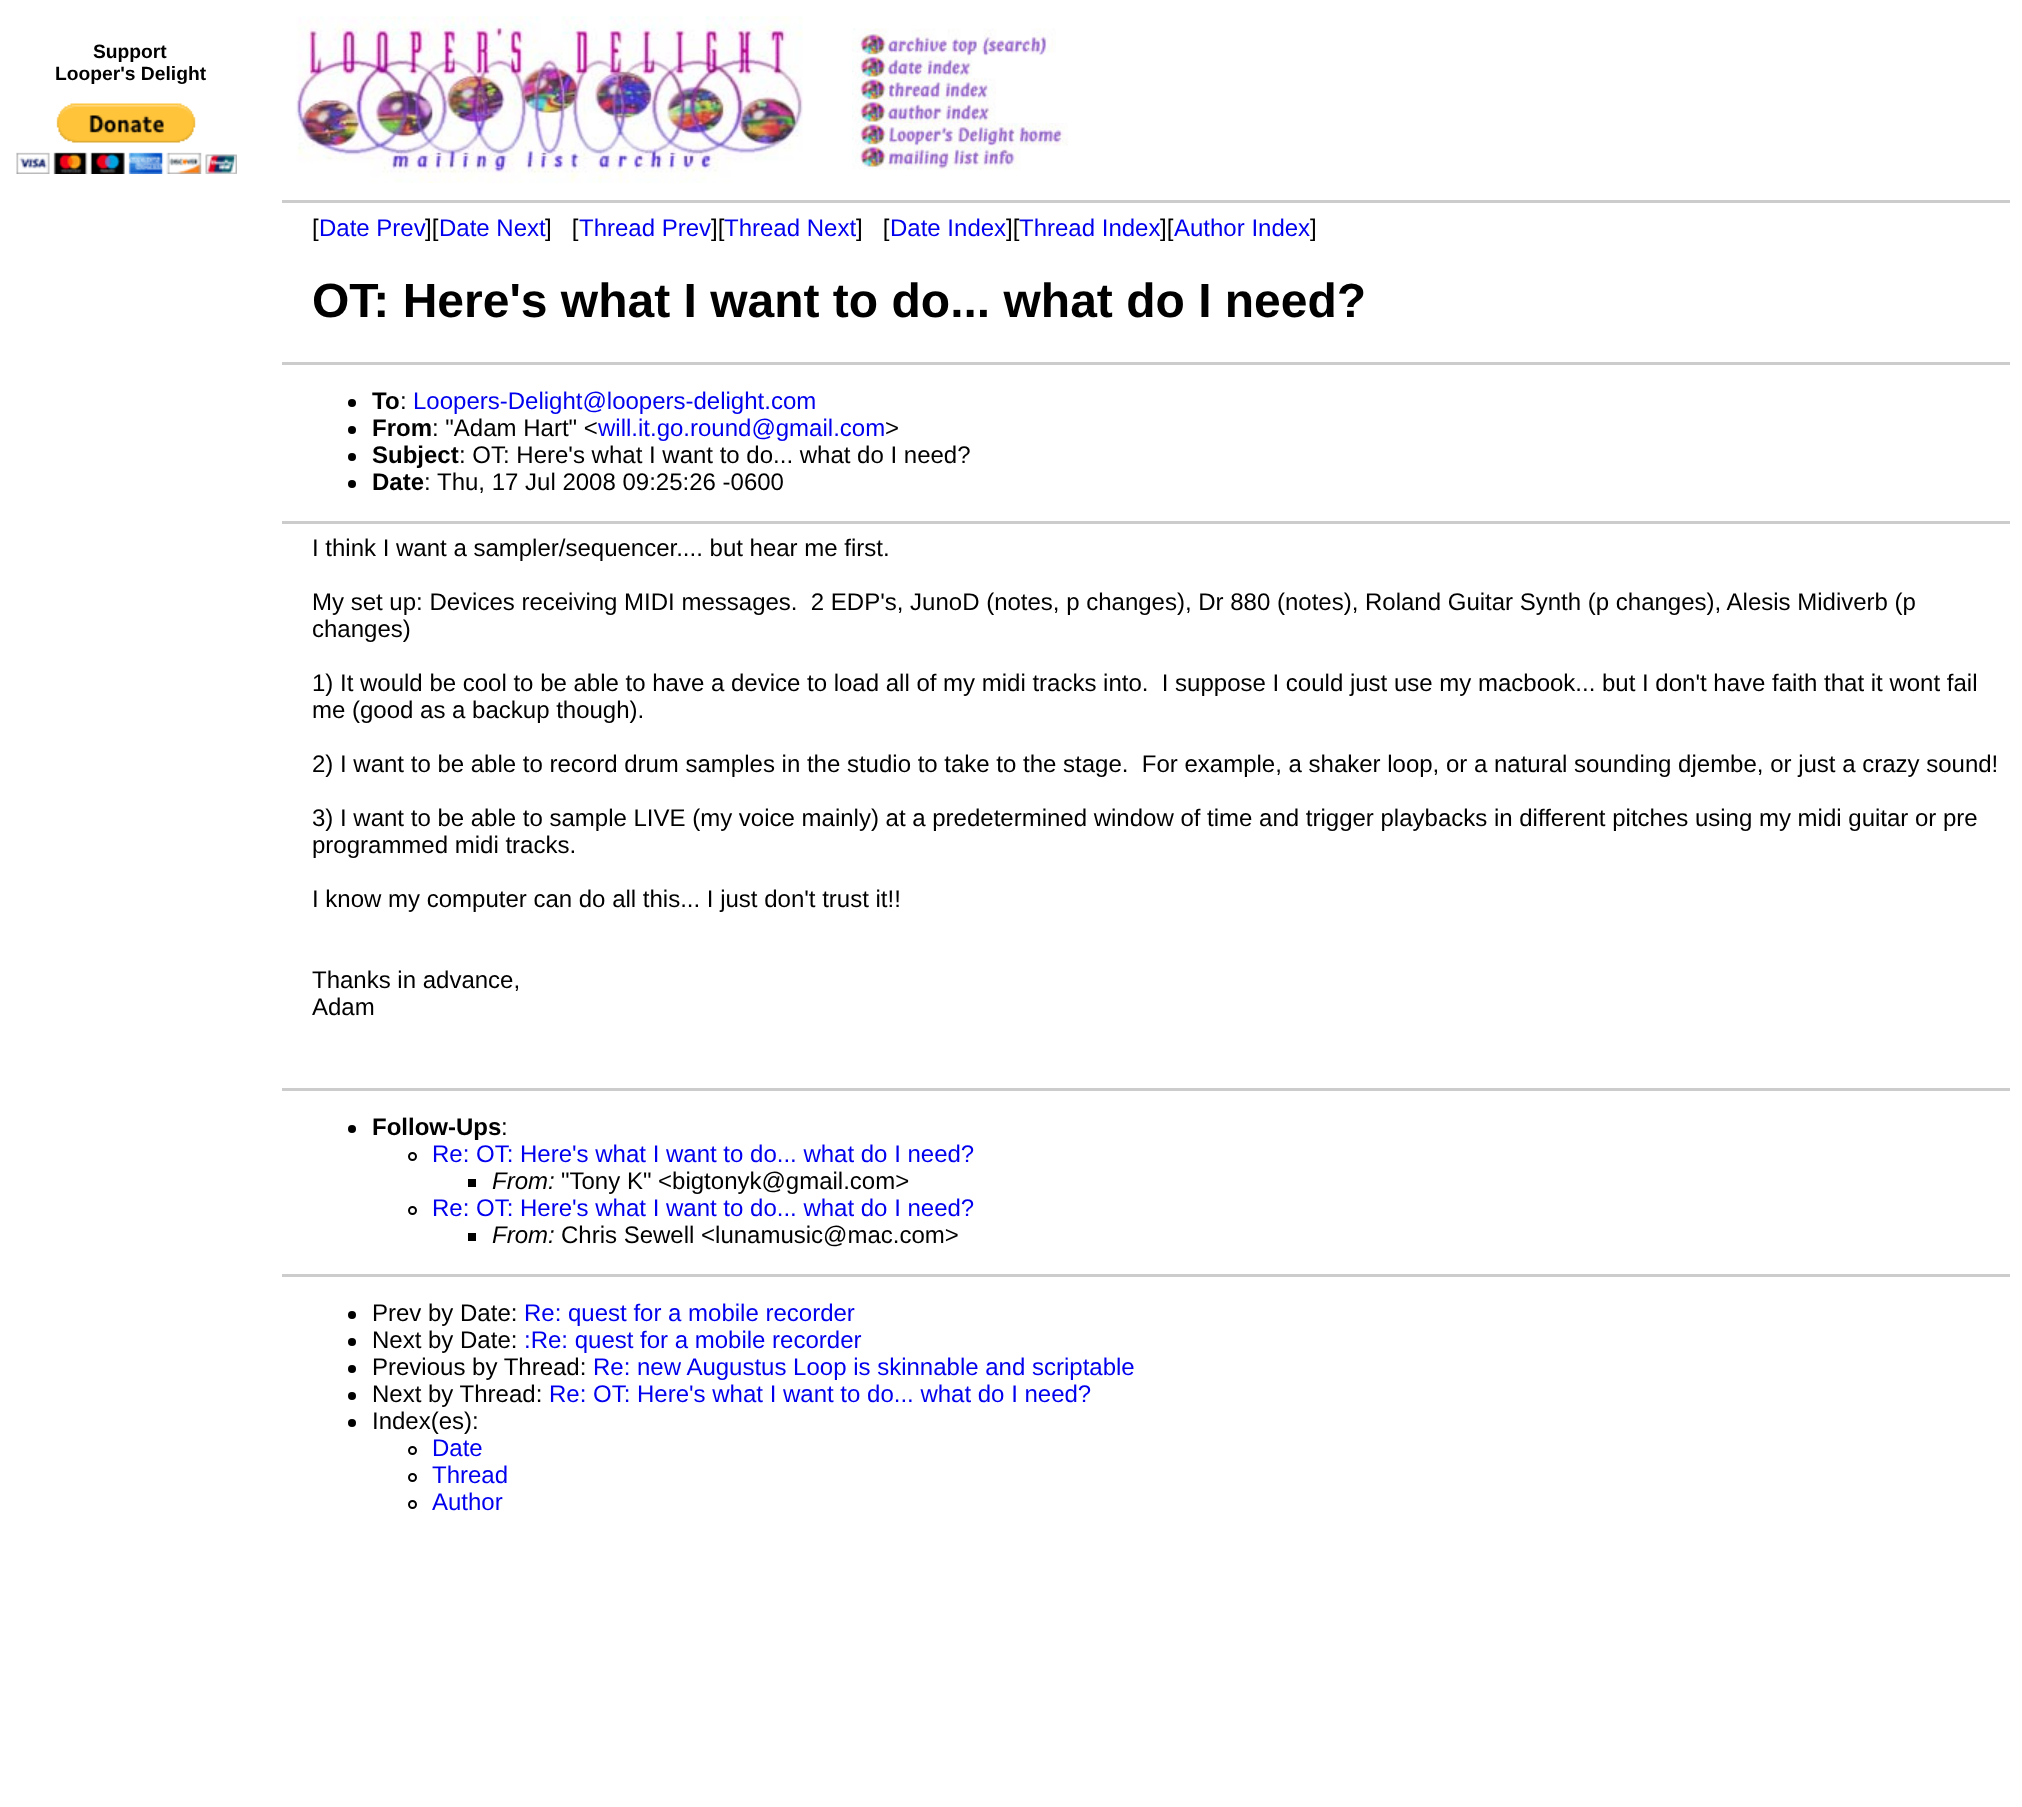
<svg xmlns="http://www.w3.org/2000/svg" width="2022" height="1807">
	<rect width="100%" height="100%" fill="#FFFFFF" />
	<g font-family="Liberation Sans" font-size="19.25" font-weight="700" fill="#000000">
		<text x="93" y="58">Support</text>
		<text x="55" y="80">Looper's Delight</text>
	</g>
	<image x="16" y="103" width="221" height="71" href="assets/img1.png" />
	<image x="295" y="16" width="508" height="167" href="assets/img2.png" />
	<image x="852" y="28" width="204" height="28" href="assets/img3.png" />
	<image x="852" y="55" width="189" height="23" href="assets/img4.png" />
	<image x="852" y="78" width="144" height="23" href="assets/img5.png" />
	<image x="852" y="100" width="144" height="23" href="assets/img6.png" />
	<image x="852" y="123" width="216" height="23" href="assets/img7.png" />
	<image x="852" y="145" width="196" height="25" href="assets/img8.png" />
	<rect x="282" y="200" width="1728" height="3" fill="#CCCCCC" />
	<text x="312" y="236" font-family="Liberation Sans" font-size="24" fill="#000000">[</text>
	<text x="319" y="236" font-family="Liberation Sans" font-size="24" fill="#0000EE">Date Prev</text>
	<text x="425" y="236" font-family="Liberation Sans" font-size="24" fill="#000000">][</text>
	<text x="439" y="236" font-family="Liberation Sans" font-size="24" fill="#0000EE">Date Next</text>
	<text x="545" y="236" font-family="Liberation Sans" font-size="24" fill="#000000" xml:space="preserve">]   [</text>
	<text x="579" y="236" font-family="Liberation Sans" font-size="24" fill="#0000EE">Thread Prev</text>
	<text x="711" y="236" font-family="Liberation Sans" font-size="24" fill="#000000">][</text>
	<text x="724" y="236" font-family="Liberation Sans" font-size="24" fill="#0000EE">Thread Next</text>
	<text x="856" y="236" font-family="Liberation Sans" font-size="24" fill="#000000" xml:space="preserve">]   [</text>
	<text x="890" y="236" font-family="Liberation Sans" font-size="24" fill="#0000EE">Date Index</text>
	<text x="1006" y="236" font-family="Liberation Sans" font-size="24" fill="#000000">][</text>
	<text x="1019" y="236" font-family="Liberation Sans" font-size="24" fill="#0000EE">Thread Index</text>
	<text x="1160" y="236" font-family="Liberation Sans" font-size="24" fill="#000000">][</text>
	<text x="1174" y="236" font-family="Liberation Sans" font-size="24" fill="#0000EE">Author Index</text>
	<text x="1310" y="236" font-family="Liberation Sans" font-size="24" fill="#000000">]</text>
	<text x="312" y="317" font-family="Liberation Sans" font-size="48" font-weight="700" fill="#000000">OT: Here's what I want to do... what do I need?</text>
	<rect x="282" y="362" width="1728" height="3" fill="#CCCCCC" />
	<circle cx="352" cy="403" r="4" fill="#000000" />
	<text x="372" y="409" font-family="Liberation Sans" font-size="24" font-weight="700" fill="#000000">To</text>
	<text x="400" y="409" font-family="Liberation Sans" font-size="24" fill="#000000">:</text>
	<text x="413" y="409" font-family="Liberation Sans" font-size="24" fill="#0000EE">Loopers-Delight@loopers-delight.com</text>
	<circle cx="352" cy="430" r="4" fill="#000000" />
	<text x="372" y="436" font-family="Liberation Sans" font-size="24" font-weight="700" fill="#000000">From</text>
	<text x="432" y="436" font-family="Liberation Sans" font-size="24" fill="#000000">: "Adam Hart" &lt;</text>
	<text x="598" y="436" font-family="Liberation Sans" font-size="24" fill="#0000EE">will.it.go.round@gmail.com</text>
	<text x="885" y="436" font-family="Liberation Sans" font-size="24" fill="#000000">&gt;</text>
	<circle cx="352" cy="457" r="4" fill="#000000" />
	<text x="372" y="463" font-family="Liberation Sans" font-size="24" font-weight="700" fill="#000000">Subject</text>
	<text x="459" y="463" font-family="Liberation Sans" font-size="24" fill="#000000">: OT: Here's what I want to do... what do I need?</text>
	<circle cx="352" cy="484" r="4" fill="#000000" />
	<text x="372" y="490" font-family="Liberation Sans" font-size="24" font-weight="700" fill="#000000">Date</text>
	<g font-family="Liberation Sans" font-size="24" fill="#000000">
		<text x="424" y="490">:</text>
		<text x="437" y="490">Thu, 17 Jul 2008 09:25:26 -0600</text>
	</g>
	<rect x="282" y="521" width="1728" height="3" fill="#CCCCCC" />
	<g font-family="Liberation Sans" font-size="24" fill="#000000">
		<text x="312" y="556">I think I want a sampler/sequencer.... but hear me first.</text>
		<text x="312" y="610" xml:space="preserve">My set up: Devices receiving MIDI messages.  2 EDP's, JunoD (notes, p changes), Dr 880 (notes), Roland Guitar Synth (p changes), Alesis Midiverb (p</text>
		<text x="312" y="637">changes)</text>
		<text x="312" y="691" xml:space="preserve">1) It would be cool to be able to have a device to load all of my midi tracks into.  I suppose I could just use my macbook... but I don't have faith that it wont fail</text>
		<text x="312" y="718">me (good as a backup though).</text>
		<text x="312" y="772" xml:space="preserve">2) I want to be able to record drum samples in the studio to take to the stage.  For example, a shaker loop, or a natural sounding djembe, or just a crazy sound!</text>
		<text x="312" y="826">3) I want to be able to sample LIVE (my voice mainly) at a predetermined window of time and trigger playbacks in different pitches using my midi guitar or pre</text>
		<text x="312" y="853">programmed midi tracks.</text>
		<text x="312" y="907">I know my computer can do all this... I just don't trust it!!</text>
		<text x="312" y="988">Thanks in advance,</text>
		<text x="312" y="1015">Adam</text>
	</g>
	<rect x="282" y="1088" width="1728" height="3" fill="#CCCCCC" />
	<circle cx="352" cy="1129" r="4" fill="#000000" />
	<text x="372" y="1135" font-family="Liberation Sans" font-size="24" font-weight="700" fill="#000000">Follow-Ups</text>
	<text x="501" y="1135" font-family="Liberation Sans" font-size="24" fill="#000000">:</text>
	<circle cx="412.5" cy="1156.5" r="3.5" fill="none" stroke="#000000" stroke-width="2" />
	<text x="432" y="1162" font-family="Liberation Sans" font-size="24" fill="#0000EE">Re: OT: Here's what I want to do... what do I need?</text>
	<rect x="468" y="1179" width="8" height="8" fill="#000000" />
	<text x="492" y="1189" font-family="Liberation Sans" font-size="24" font-style="italic" fill="#000000">From:</text>
	<text x="561" y="1189" font-family="Liberation Sans" font-size="24" fill="#000000">"Tony K" &lt;bigtonyk@gmail.com&gt;</text>
	<circle cx="412.5" cy="1210.5" r="3.5" fill="none" stroke="#000000" stroke-width="2" />
	<text x="432" y="1216" font-family="Liberation Sans" font-size="24" fill="#0000EE">Re: OT: Here's what I want to do... what do I need?</text>
	<rect x="468" y="1233" width="8" height="8" fill="#000000" />
	<text x="492" y="1243" font-family="Liberation Sans" font-size="24" font-style="italic" fill="#000000">From:</text>
	<text x="561" y="1243" font-family="Liberation Sans" font-size="24" fill="#000000">Chris Sewell &lt;lunamusic@mac.com&gt;</text>
	<rect x="282" y="1274" width="1728" height="3" fill="#CCCCCC" />
	<circle cx="352" cy="1315" r="4" fill="#000000" />
	<text x="372" y="1321" font-family="Liberation Sans" font-size="24" fill="#000000">Prev by Date:</text>
	<text x="524" y="1321" font-family="Liberation Sans" font-size="24" fill="#0000EE">Re: quest for a mobile recorder</text>
	<circle cx="352" cy="1342" r="4" fill="#000000" />
	<text x="372" y="1348" font-family="Liberation Sans" font-size="24" fill="#000000">Next by Date:</text>
	<text x="524" y="1348" font-family="Liberation Sans" font-size="24" fill="#0000EE">:Re: quest for a mobile recorder</text>
	<circle cx="352" cy="1369" r="4" fill="#000000" />
	<text x="372" y="1375" font-family="Liberation Sans" font-size="24" fill="#000000">Previous by Thread:</text>
	<text x="593" y="1375" font-family="Liberation Sans" font-size="24" fill="#0000EE">Re: new Augustus Loop is skinnable and scriptable</text>
	<circle cx="352" cy="1396" r="4" fill="#000000" />
	<text x="372" y="1402" font-family="Liberation Sans" font-size="24" fill="#000000">Next by Thread:</text>
	<text x="549" y="1402" font-family="Liberation Sans" font-size="24" fill="#0000EE">Re: OT: Here's what I want to do... what do I need?</text>
	<circle cx="352" cy="1423" r="4" fill="#000000" />
	<text x="372" y="1429" font-family="Liberation Sans" font-size="24" fill="#000000">Index(es):</text>
	<circle cx="412.5" cy="1450.5" r="3.5" fill="none" stroke="#000000" stroke-width="2" />
	<text x="432" y="1456" font-family="Liberation Sans" font-size="24" fill="#0000EE">Date</text>
	<circle cx="412.5" cy="1477.5" r="3.5" fill="none" stroke="#000000" stroke-width="2" />
	<text x="432" y="1483" font-family="Liberation Sans" font-size="24" fill="#0000EE">Thread</text>
	<circle cx="412.5" cy="1504.5" r="3.5" fill="none" stroke="#000000" stroke-width="2" />
	<text x="432" y="1510" font-family="Liberation Sans" font-size="24" fill="#0000EE">Author</text>
</svg>
